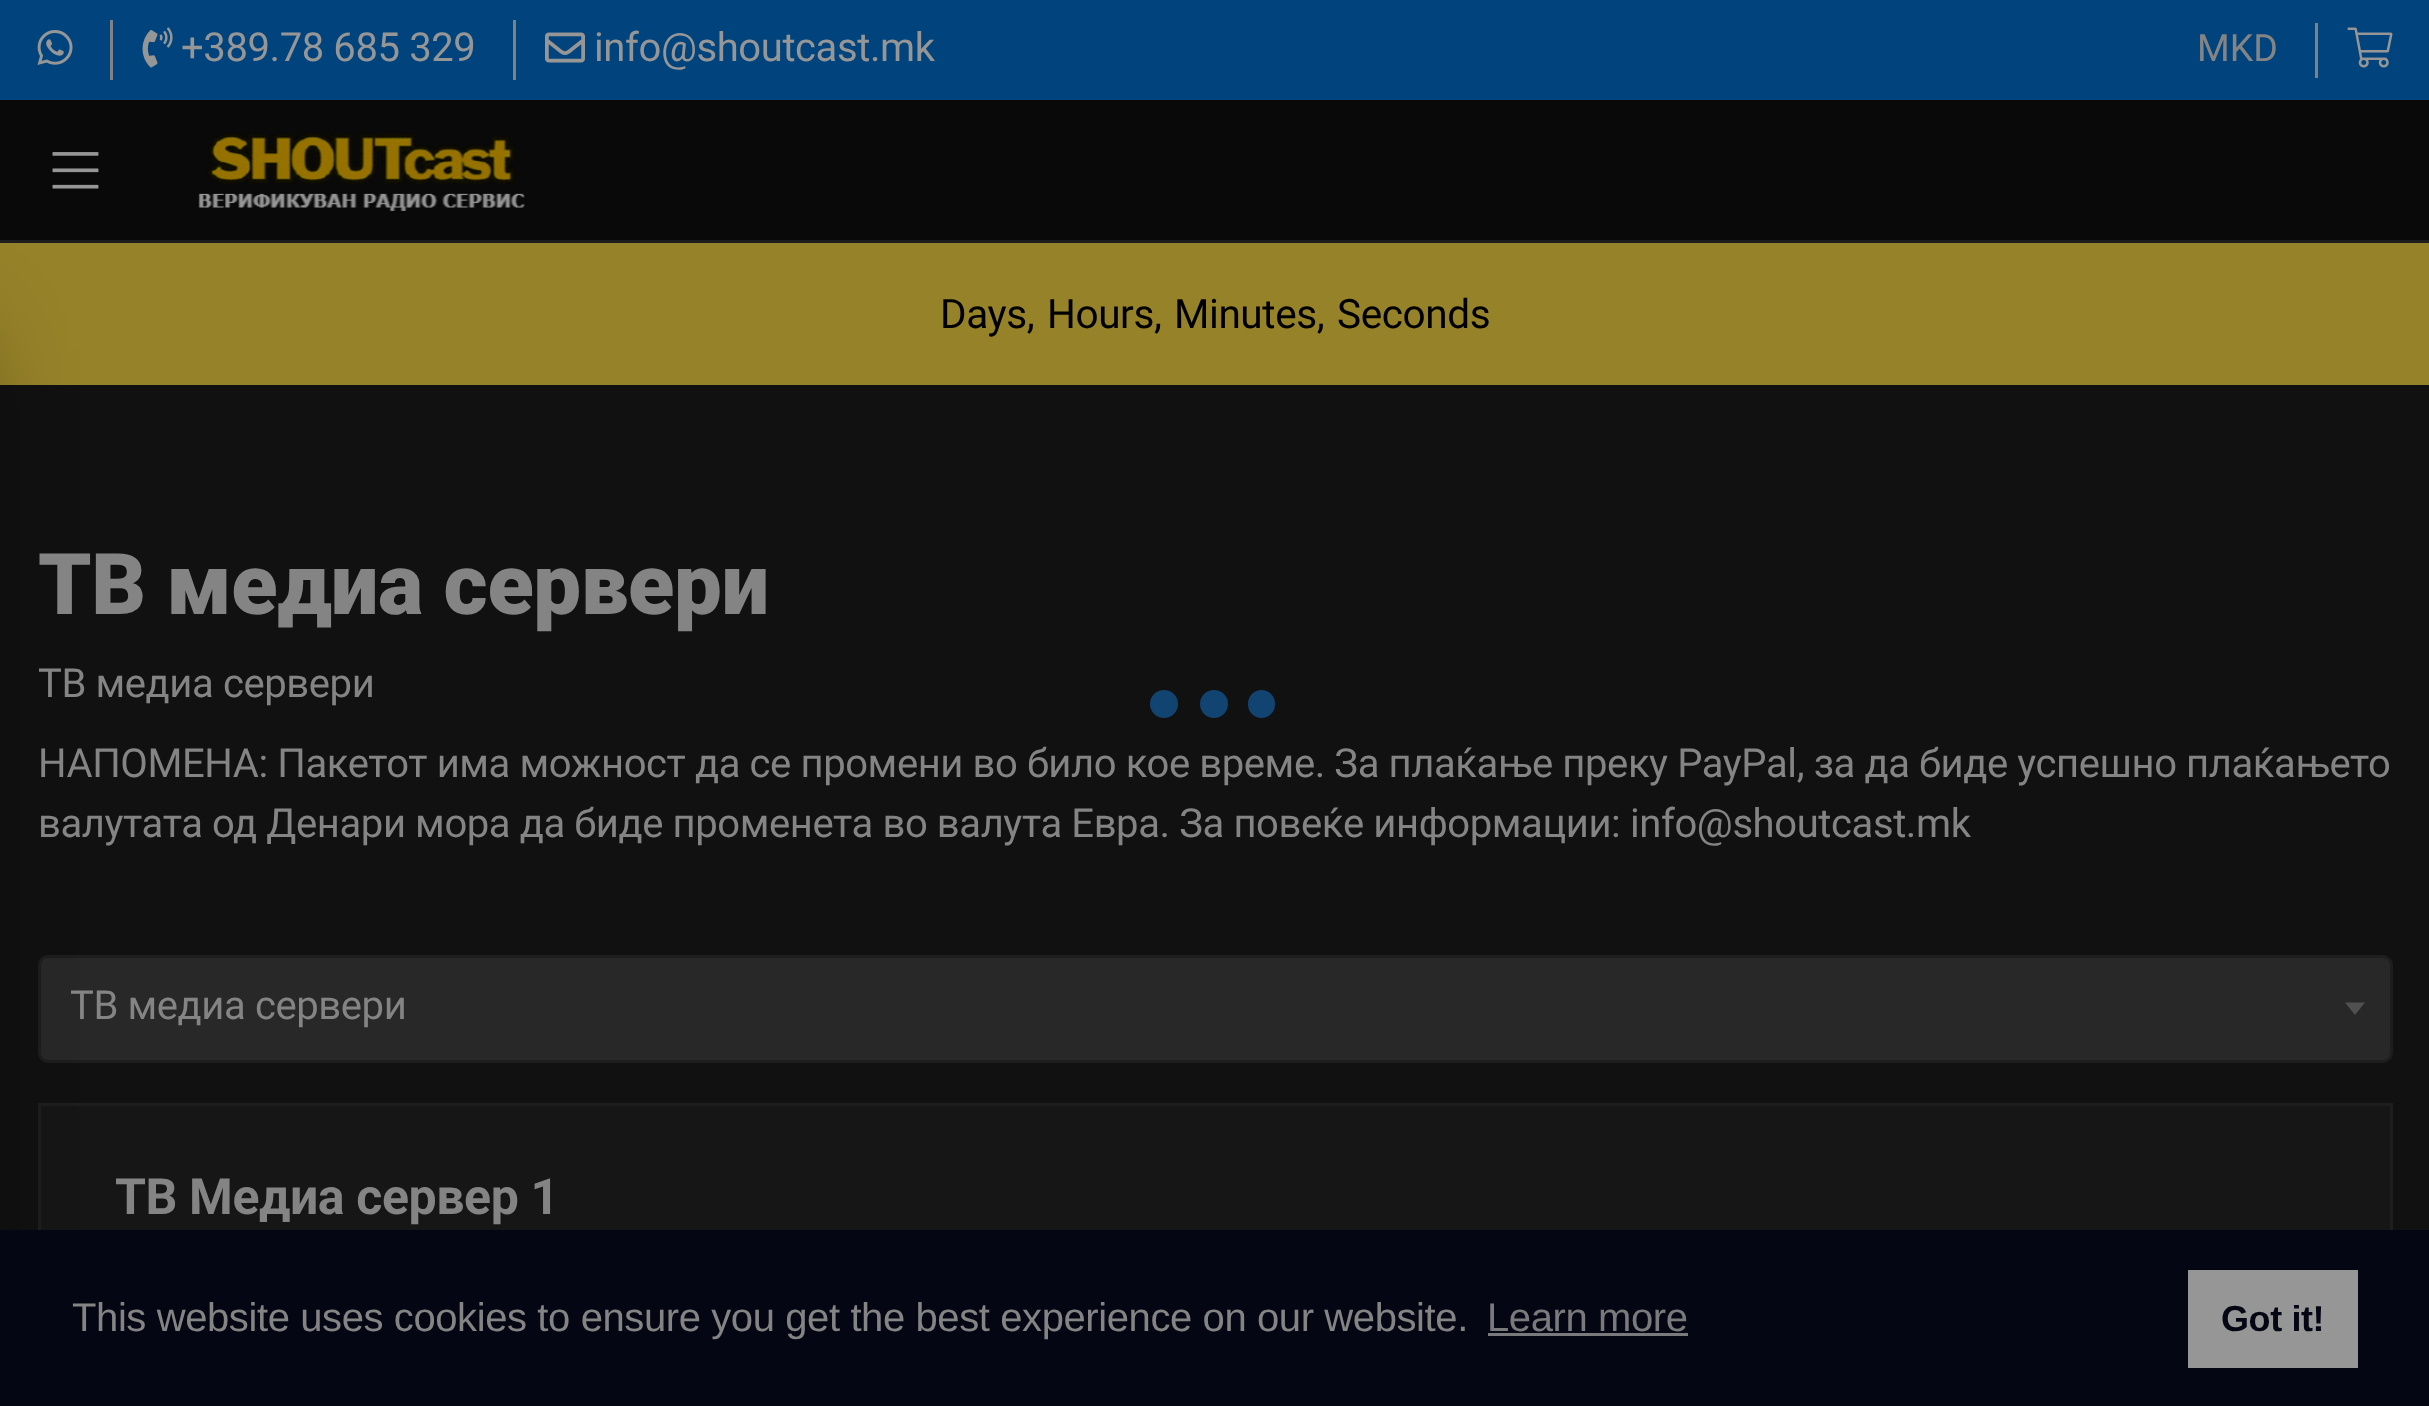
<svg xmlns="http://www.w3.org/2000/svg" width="2429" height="1406">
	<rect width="100%" height="100%" fill="#111111" />
	<rect x="0" y="243" width="2429" height="142" fill="#968229" />
	<rect x="39.5" y="956.5" width="2352" height="105" rx="8.5" fill="#282828" stroke="#1E1E1E" stroke-width="3" />
	<rect x="41" y="1106" width="2349" height="124" fill="#161616" />
	<rect x="39.5" y="1104.5" width="2352" height="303" fill="none" stroke="#1E1E1E" stroke-width="3" />
	<rect x="-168" y="350" width="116" height="1013" fill="#000000" fill-opacity="0.72" filter="blur(56px)" />
	<rect x="0" y="100" width="2429" height="140" fill="#090909" />
	<rect x="0" y="240" width="2429" height="3" fill="#1E1E1E" />
	<rect x="0" y="0" width="2429" height="100" fill="#01447D" />
	<rect x="110" y="20" width="3" height="60" fill="#7E8287" />
	<image x="37" y="30" width="36" height="35" href="assets/img1.png" />
	<rect x="513" y="20" width="3" height="60" fill="#7E8287" />
	<image x="142" y="27" width="31" height="41" href="assets/img2.png" />
	<text x="181" y="61" font-family="Roboto" font-size="40" letter-spacing="-0.4" fill="#969696">+389.78 685 329</text>
	<image x="545" y="32" width="40" height="31" href="assets/img3.png" />
	<text x="594" y="61" font-family="Roboto" font-size="40" letter-spacing="-0.4" fill="#969696">info@shoutcast.mk</text>
	<rect x="2315" y="23" width="3" height="55" fill="#7E8287" />
	<text x="2197" y="61" font-family="Roboto" font-size="37.5" fill="#848484">MKD</text>
	<image x="2347" y="27" width="46" height="41" href="assets/img4.png" />
	<image x="52" y="152" width="47" height="37" href="assets/img5.png" />
	<image x="198" y="133" width="327" height="78" href="assets/img6.png" />
	<g font-family="Roboto" font-size="40.5" letter-spacing="-0.4" fill="#000000">
		<text x="940" y="328">Days,</text>
		<text x="1047" y="328">Hours,</text>
		<text x="1174" y="328">Minutes,</text>
		<text x="1337" y="328">Seconds</text>
	</g>
	<text x="38" y="614" font-family="Roboto" font-size="85" font-weight="900" letter-spacing="-0.4" fill="#848484">TВ медиа сервери</text>
	<g font-family="Roboto" font-size="40" letter-spacing="-0.4" fill="#848484">
		<text x="38" y="697">TВ медиа сервери</text>
		<text x="38" y="777">НАПОМЕНА: Пакетот има можност да се промени во било кое време. За плаќање преку PayPal, за да биде успешно плаќањето</text>
		<text x="38" y="837">валутата од Денари мора да биде променета во валута Евра. За повеќе информации: info@shoutcast.mk</text>
		<text x="70" y="1019">TВ медиа сервери</text>
	</g>
	<path d="M2345 1002.5H2365L2355 1015Z" fill="#505050" />
	<text x="115" y="1214" font-family="Roboto" font-size="50" font-weight="700" letter-spacing="-0.4" fill="#848484">ТВ Медиа сервер 1</text>
	<circle cx="1164" cy="704" r="14" fill="#114471" />
	<circle cx="1214" cy="704" r="14" fill="#114471" />
	<rect x="1248" y="690" width="27" height="28" rx="13.5" fill="#114471" />
	<rect x="0" y="1230" width="2429" height="176" fill="#050613" />
	<text x="72" y="1331" font-family="Liberation Sans" font-size="40" letter-spacing="-0.4" fill="#848484">This website uses cookies to ensure you get the best experience on our website.</text>
	<text x="1487" y="1331" font-family="Liberation Sans" font-size="40" letter-spacing="-0.4" fill="#7A7A7C">Learn more</text>
	<rect x="1488" y="1333" width="200" height="3" fill="#7A7A7C" />
	<rect x="2188" y="1270" width="170" height="98" fill="#969696" />
	<text x="2221" y="1331" font-family="Liberation Sans" font-size="36" font-weight="700" letter-spacing="-0.4" fill="#050613">Got it!</text>
</svg>
